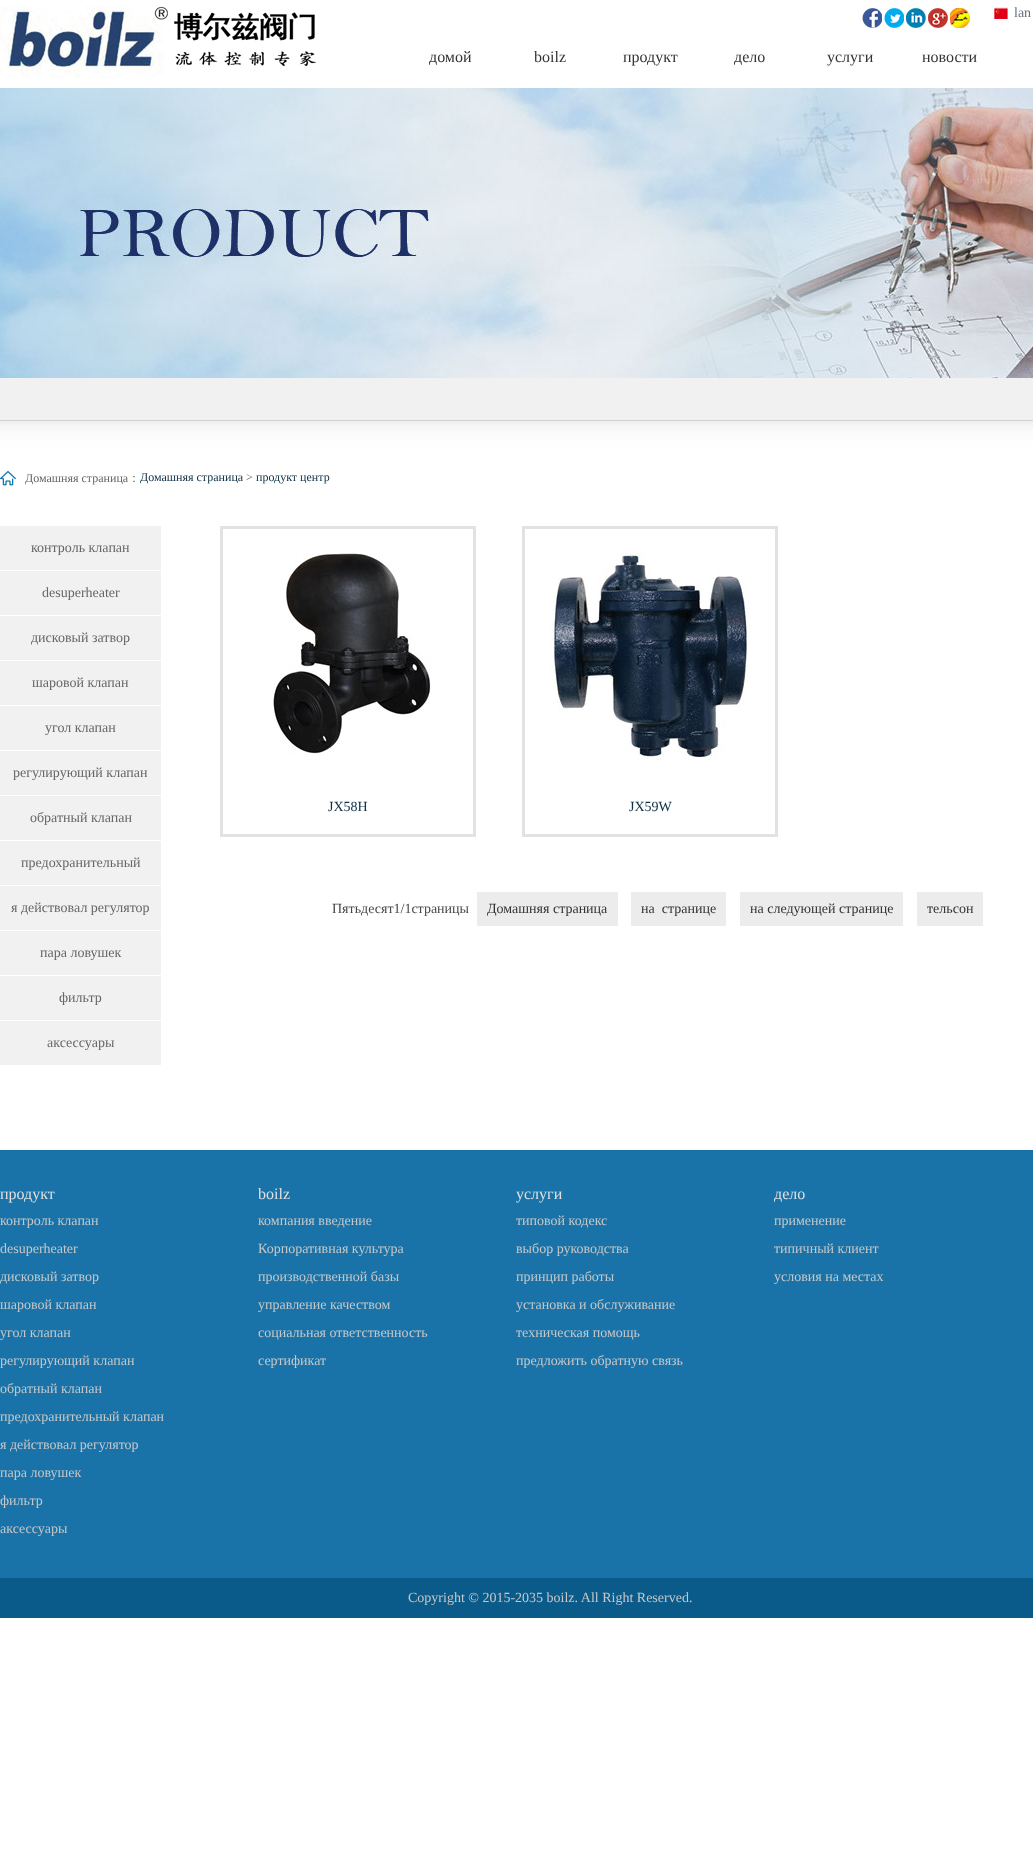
<svg xmlns="http://www.w3.org/2000/svg" width="1033" height="1859">
	<rect width="100%" height="100%" fill="#FFFFFF" />
	<image x="0" y="6" width="316" height="72" href="assets/img1.png" />
	<image x="862" y="8" width="20" height="20" href="assets/img2.png" />
	<image x="884" y="8" width="20" height="20" href="assets/img3.png" />
	<image x="906" y="8" width="20" height="20" href="assets/img4.png" />
	<image x="928" y="8" width="20" height="20" href="assets/img5.png" />
	<image x="950" y="8" width="20" height="20" href="assets/img6.png" />
	<image x="994" y="7" width="14" height="12" href="assets/img7.png" />
	<text x="1014" y="17" font-family="Liberation Serif" font-size="14" fill="#65707D">lan</text>
	<g font-family="Liberation Serif" font-size="16" fill="#333333">
		<text x="429" y="62">домой</text>
		<text x="534" y="62">boilz</text>
		<text x="623" y="62">продукт</text>
		<text x="734" y="62">дело</text>
		<text x="827" y="62">услуги</text>
		<text x="922" y="62">новости</text>
	</g>
	<image x="0" y="88" width="1033" height="290" href="assets/img8.png" />
	<rect x="0" y="378" width="1033" height="42" fill="#F1F1F1" />
	<image x="0" y="420" width="1033" height="30" href="assets/img9.png" />
	<image x="0" y="471" width="16" height="15" href="assets/img10.png" />
	<text x="25" y="482" font-family="Liberation Serif" font-size="12" fill="#666666">Домашняя страница</text>
	<text x="128" y="482" font-family="WenQuanYi Zen Hei" font-size="12" font-weight="500" fill="#666666">：</text>
	<text x="140" y="481" font-family="Liberation Serif" font-size="12" fill="#0E3146">Домашняя страница</text>
	<text x="246" y="481" font-family="Liberation Serif" font-size="12" fill="#666666">&gt;</text>
	<text x="256" y="481" font-family="Liberation Serif" font-size="12" fill="#0E3146">продукт центр</text>
	<rect x="0" y="526" width="161" height="44" fill="#F1F1F1" />
	<text x="31" y="552" font-family="Liberation Serif" font-size="14" fill="#666666">контроль клапан</text>
	<rect x="0" y="571" width="161" height="44" fill="#F1F1F1" />
	<text x="42" y="597" font-family="Liberation Serif" font-size="14" fill="#666666">desuperheater</text>
	<rect x="0" y="616" width="161" height="44" fill="#F1F1F1" />
	<text x="31" y="642" font-family="Liberation Serif" font-size="14" fill="#666666">дисковый затвор</text>
	<rect x="0" y="661" width="161" height="44" fill="#F1F1F1" />
	<text x="32" y="687" font-family="Liberation Serif" font-size="14" fill="#666666">шаровой клапан</text>
	<rect x="0" y="706" width="161" height="44" fill="#F1F1F1" />
	<text x="45" y="732" font-family="Liberation Serif" font-size="14" fill="#666666">угол клапан</text>
	<rect x="0" y="751" width="161" height="44" fill="#F1F1F1" />
	<text x="13" y="777" font-family="Liberation Serif" font-size="14" fill="#666666">регулирующий клапан</text>
	<rect x="0" y="796" width="161" height="44" fill="#F1F1F1" />
	<text x="30" y="822" font-family="Liberation Serif" font-size="14" fill="#666666">обратный клапан</text>
	<rect x="0" y="841" width="161" height="44" fill="#F1F1F1" />
	<text x="21" y="867" font-family="Liberation Serif" font-size="14" fill="#666666">предохранительный</text>
	<rect x="0" y="886" width="161" height="44" fill="#F1F1F1" />
	<text x="11" y="912" font-family="Liberation Serif" font-size="14" fill="#666666">я действовал регулятор</text>
	<rect x="0" y="931" width="161" height="44" fill="#F1F1F1" />
	<text x="40" y="957" font-family="Liberation Serif" font-size="14" fill="#666666">пара ловушек</text>
	<rect x="0" y="976" width="161" height="44" fill="#F1F1F1" />
	<text x="59" y="1002" font-family="Liberation Serif" font-size="14" fill="#666666">фильтр</text>
	<rect x="0" y="1021" width="161" height="44" fill="#F1F1F1" />
	<text x="47" y="1047" font-family="Liberation Serif" font-size="14" fill="#666666">аксессуары</text>
	<rect x="221.5" y="527.5" width="253" height="308" fill="none" stroke="#E2E2E2" stroke-width="3" />
	<image x="273" y="553" width="158" height="201" href="assets/img11.png" />
	<text x="328" y="811" font-family="Liberation Serif" font-size="14" fill="#0E3146">JX58H</text>
	<rect x="523.5" y="527.5" width="253" height="308" fill="none" stroke="#E2E2E2" stroke-width="3" />
	<image x="549" y="553" width="200" height="208" href="assets/img12.png" />
	<text x="629" y="811" font-family="Liberation Serif" font-size="14" fill="#0E3146">JX59W</text>
	<text x="332" y="913" font-family="Liberation Serif" font-size="14" fill="#484848">Пятьдесят1/1страницы</text>
	<rect x="477" y="892" width="141" height="34" fill="#ECECEC" />
	<text x="487" y="913" font-family="Liberation Serif" font-size="14" fill="#333333">Домашняя страница</text>
	<rect x="631" y="892" width="95" height="34" fill="#ECECEC" />
	<text x="641" y="913" font-family="Liberation Serif" font-size="14" fill="#333333" xml:space="preserve">на  странице</text>
	<rect x="740" y="892" width="163" height="34" fill="#ECECEC" />
	<text x="750" y="913" font-family="Liberation Serif" font-size="14" fill="#333333">на следующей странице</text>
	<rect x="917" y="892" width="66" height="34" fill="#ECECEC" />
	<text x="927" y="913" font-family="Liberation Serif" font-size="14" fill="#333333">тельсон</text>
	<rect x="0" y="1150" width="1033" height="428" fill="#1973A9" />
	<text x="0" y="1199" font-family="Liberation Serif" font-size="16" fill="#E0E0E0">продукт</text>
	<g font-family="Liberation Serif" font-size="14" fill="#C7C7C7">
		<text x="0" y="1225">контроль клапан</text>
		<text x="0" y="1253">desuperheater</text>
		<text x="0" y="1281">дисковый затвор</text>
		<text x="0" y="1309">шаровой клапан</text>
		<text x="0" y="1337">угол клапан</text>
		<text x="0" y="1365">регулирующий клапан</text>
		<text x="0" y="1393">обратный клапан</text>
		<text x="0" y="1421">предохранительный клапан</text>
		<text x="0" y="1449">я действовал регулятор</text>
		<text x="0" y="1477">пара ловушек</text>
		<text x="0" y="1505">фильтр</text>
		<text x="0" y="1533">аксессуары</text>
	</g>
	<text x="258" y="1199" font-family="Liberation Serif" font-size="16" fill="#E0E0E0">boilz</text>
	<g font-family="Liberation Serif" font-size="14" fill="#C7C7C7">
		<text x="258" y="1225">компания введение</text>
		<text x="258" y="1253">Корпоративная культура</text>
		<text x="258" y="1281">производственной базы</text>
		<text x="258" y="1309">управление качеством</text>
		<text x="258" y="1337">социальная ответственность</text>
		<text x="258" y="1365">сертификат</text>
	</g>
	<text x="516" y="1199" font-family="Liberation Serif" font-size="16" fill="#E0E0E0">услуги</text>
	<g font-family="Liberation Serif" font-size="14" fill="#C7C7C7">
		<text x="516" y="1225">типовой кодекс</text>
		<text x="516" y="1253">выбор руководства</text>
		<text x="516" y="1281">принцип работы</text>
		<text x="516" y="1309">установка и обслуживание</text>
		<text x="516" y="1337">техническая помощь</text>
		<text x="516" y="1365">предложить обратную связь</text>
	</g>
	<text x="774" y="1199" font-family="Liberation Serif" font-size="16" fill="#E0E0E0">дело</text>
	<g font-family="Liberation Serif" font-size="14" fill="#C7C7C7">
		<text x="774" y="1225">применение</text>
		<text x="774" y="1253">типичный клиент</text>
		<text x="774" y="1281">условия на местах</text>
	</g>
	<rect x="0" y="1578" width="1033" height="40" fill="#0B5B8A" />
	<text x="408" y="1602" font-family="Liberation Serif" font-size="14" fill="#C7C7C7">Copyright © 2015-2035 boilz. All Right Reserved.</text>
</svg>
